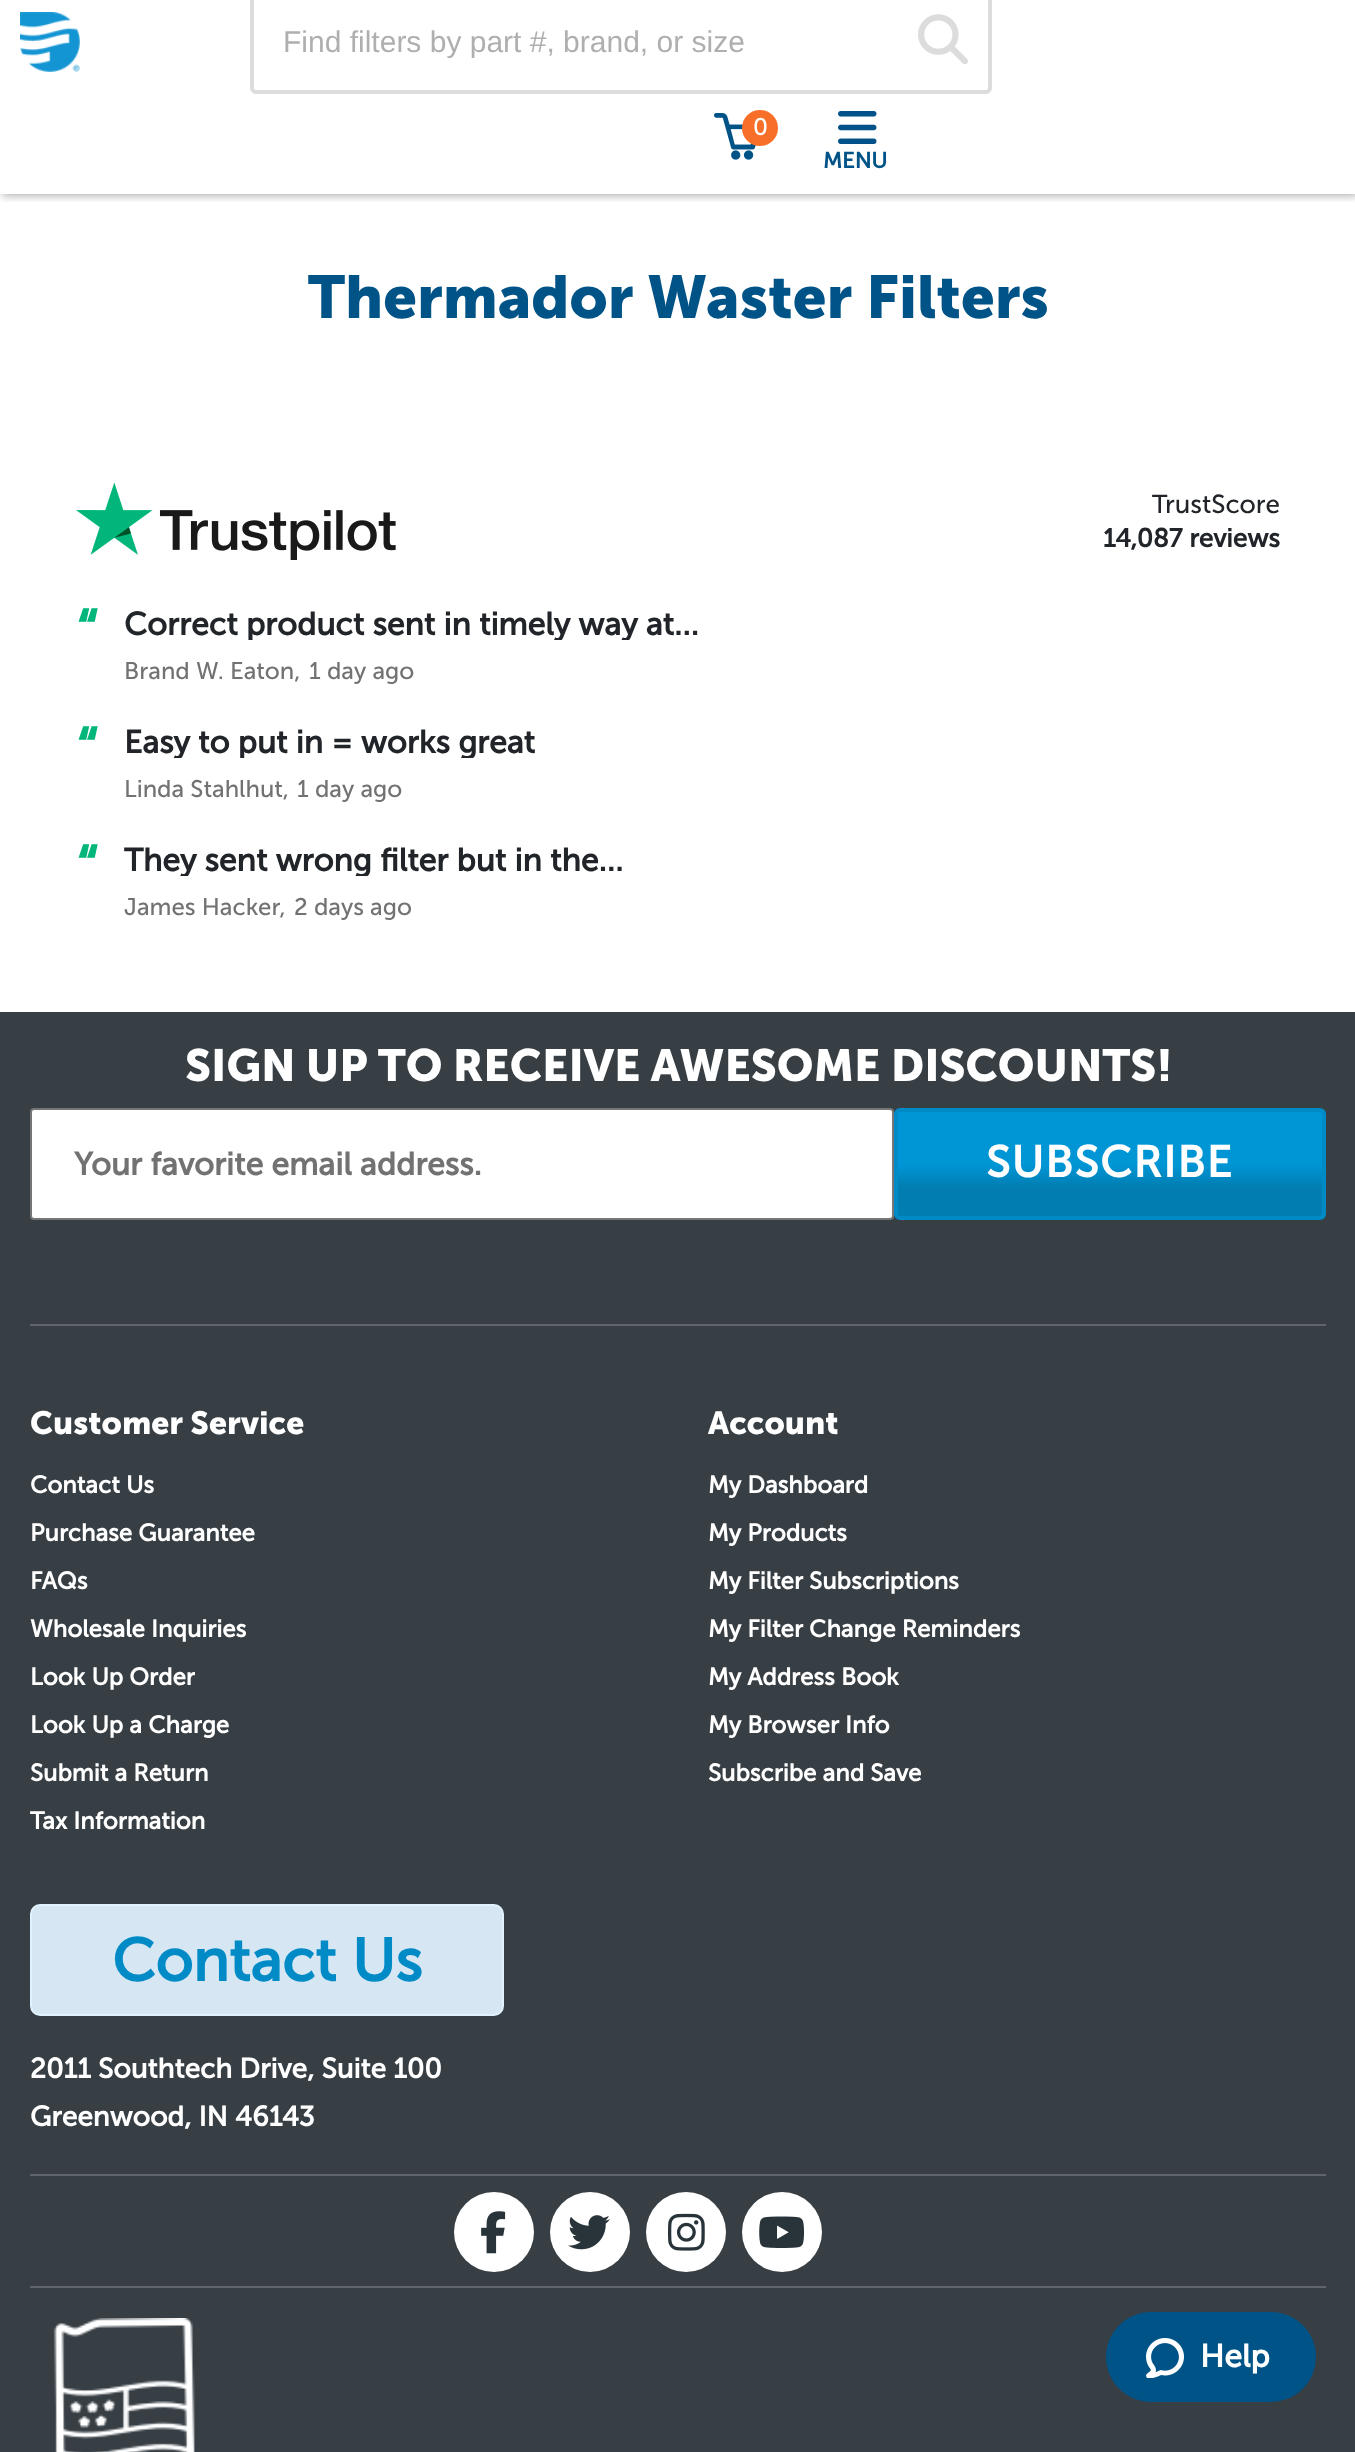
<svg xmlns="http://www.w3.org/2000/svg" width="1355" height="2452">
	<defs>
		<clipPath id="clip1"><rect x="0" y="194" width="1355" height="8" /></clipPath>
		<clipPath id="clip2"><rect x="284" y="24" width="596" height="34" /></clipPath>
		<clipPath id="clip3"><rect x="124" y="608" width="1156" height="32" /></clipPath>
		<clipPath id="clip4"><rect x="124" y="726" width="1156" height="32" /></clipPath>
		<clipPath id="clip5"><rect x="124" y="844" width="1156" height="32" /></clipPath>
		<linearGradient id="g1" gradientUnits="userSpaceOnUse" x1="1110" y1="1108" x2="1110" y2="1220"><stop offset="0" stop-color="#0096D6" /><stop offset="0.5" stop-color="#0096D6" /><stop offset="0.71" stop-color="#017DB2" /><stop offset="1" stop-color="#017DB2" /></linearGradient>
	</defs>
	<rect width="100%" height="100%" fill="#FFFFFF" />
	<g clip-path="url(#clip1)">
		<rect x="2" y="-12" width="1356" height="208" fill="#000000" fill-opacity="0.3" filter="blur(4px)" />
	</g>
	<image x="20" y="12" width="60" height="60" href="assets/img1.png" />
	<rect x="252" y="-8" width="738" height="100" rx="4" fill="none" stroke="#DCDCDC" stroke-width="4" />
	<g clip-path="url(#clip2)">
		<text x="283" y="52" font-family="Liberation Sans" font-size="30" fill="#AFAFAF">Find filters by part #, brand, or size</text>
	</g>
	<image x="918" y="14" width="50" height="51" href="assets/img2.png" />
	<image x="714" y="113" width="42" height="47" href="assets/img3.png" />
	<circle cx="760" cy="128" r="18" fill="#F76F28" />
	<text x="753" y="135" font-family="Museo Sans" font-size="24" fill="#FFFFFF">0</text>
	<image x="838" y="111" width="39" height="33" href="assets/img4.png" />
	<text x="823" y="168" font-family="'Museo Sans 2'" font-size="22" font-weight="700" fill="#005387">MENU</text>
	<text x="308" y="318" font-family="Museo Sans" font-size="60" font-weight="700" fill="#005387">Thermador Waster Filters</text>
	<image x="76" y="482" width="320" height="78" href="assets/img5.png" />
	<text x="1152" y="513" font-family="Museo Sans" font-size="26" fill="#212529">TrustScore</text>
	<text x="1103" y="547" font-family="'Museo Sans 2'" font-size="26" font-weight="700" fill="#212529">14,087 reviews</text>
	<text x="76" y="653" font-family="'Museo Sans 2'" font-size="60" font-weight="700" fill="#00B67A">“</text>
	<g clip-path="url(#clip3)">
		<text x="124" y="635" font-family="'Museo Sans 2'" font-size="32" font-weight="700" fill="#212529">Correct product sent in timely way at…</text>
	</g>
	<g font-family="Museo Sans" font-size="24" fill="#727273">
		<text x="124" y="679">Brand W. Eaton,</text>
		<text x="309" y="679">1 day ago</text>
	</g>
	<text x="76" y="771" font-family="'Museo Sans 2'" font-size="60" font-weight="700" fill="#00B67A">“</text>
	<g clip-path="url(#clip4)">
		<text x="124" y="753" font-family="'Museo Sans 2'" font-size="32" font-weight="700" fill="#212529">Easy to put in = works great</text>
	</g>
	<g font-family="Museo Sans" font-size="24" fill="#727273">
		<text x="124" y="797">Linda Stahlhut,</text>
		<text x="297" y="797">1 day ago</text>
	</g>
	<text x="76" y="889" font-family="'Museo Sans 2'" font-size="60" font-weight="700" fill="#00B67A">“</text>
	<g clip-path="url(#clip5)">
		<text x="124" y="871" font-family="'Museo Sans 2'" font-size="32" font-weight="700" fill="#212529">They sent wrong filter but in the…</text>
	</g>
	<g font-family="Museo Sans" font-size="24" fill="#727273">
		<text x="124" y="915">James Hacker,</text>
		<text x="294" y="915">2 days ago</text>
	</g>
	<rect x="0" y="1012" width="1355" height="1440" fill="#373F45" />
	<rect x="30" y="1324" width="1296" height="2" fill="#5F656A" />
	<text x="185" y="1081" font-family="Museo Sans" font-size="44.9" font-weight="700" fill="#FFFFFF">SIGN UP TO RECEIVE AWESOME DISCOUNTS!</text>
	<rect x="31" y="1109" width="862" height="110" rx="3" fill="#FFFFFF" stroke="#767676" stroke-width="2" />
	<text x="74" y="1175" font-family="'Museo Sans 2'" font-size="32" font-weight="700" fill="#727273">Your favorite email address.</text>
	<rect x="896" y="1110" width="428" height="108" rx="4" fill="url(#g1)" stroke="#008BC7" stroke-width="4" />
	<text x="986" y="1177" font-family="'Museo Sans 2'" font-size="44" font-weight="700" letter-spacing="1.5" fill="#FFFFFF">SUBSCRIBE</text>
	<text x="30" y="1434" font-family="Museo Sans" font-size="32" font-weight="700" fill="#FFFFFF">Customer Service</text>
	<g font-family="'Museo Sans 2'" font-size="24" font-weight="700" fill="#FFFFFF">
		<text x="30" y="1493">Contact Us</text>
		<text x="30" y="1541">Purchase Guarantee</text>
		<text x="30" y="1589">FAQs</text>
		<text x="30" y="1637">Wholesale Inquiries</text>
		<text x="30" y="1685">Look Up Order</text>
		<text x="30" y="1733">Look Up a Charge</text>
		<text x="30" y="1781">Submit a Return</text>
		<text x="30" y="1829">Tax Information</text>
	</g>
	<text x="708" y="1434" font-family="Museo Sans" font-size="32" font-weight="700" fill="#FFFFFF">Account</text>
	<g font-family="'Museo Sans 2'" font-size="24" font-weight="700" fill="#FFFFFF">
		<text x="708" y="1493">My Dashboard</text>
		<text x="708" y="1541">My Products</text>
		<text x="708" y="1589">My Filter Subscriptions</text>
		<text x="708" y="1637">My Filter Change Reminders</text>
		<text x="708" y="1685">My Address Book</text>
		<text x="708" y="1733">My Browser Info</text>
		<text x="708" y="1781">Subscribe and Save</text>
	</g>
	<rect x="31" y="1905" width="472" height="110" rx="9" fill="#D6E7F3" stroke="#E0F2FF" stroke-width="2" />
	<text x="112" y="1981" font-family="'Museo Sans 2'" font-size="60" font-weight="700" fill="#008BC7">Contact Us</text>
	<g font-family="'Museo Sans 2'" font-size="28" font-weight="700" fill="#FFFFFF">
		<text x="30" y="2078">2011 Southtech Drive, Suite 100</text>
		<text x="30" y="2126">Greenwood, IN 46143</text>
	</g>
	<rect x="30" y="2174" width="1296" height="2" fill="#5F656A" />
	<rect x="30" y="2286" width="1296" height="2" fill="#5F656A" />
	<circle cx="494" cy="2232" r="40" fill="#FFFFFF" />
	<image x="481" y="2211" width="25" height="43" href="assets/img6.png" />
	<circle cx="590" cy="2232" r="40" fill="#FFFFFF" />
	<image x="568" y="2215" width="42" height="35" href="assets/img7.png" />
	<circle cx="686" cy="2232" r="40" fill="#FFFFFF" />
	<image x="668" y="2213" width="37" height="38" href="assets/img8.png" />
	<circle cx="782" cy="2232" r="40" fill="#FFFFFF" />
	<image x="759" y="2216" width="45" height="32" href="assets/img9.png" />
	<image x="53" y="2318" width="142" height="134" href="assets/img10.png" />
	<rect x="1106" y="2312" width="210" height="90" rx="45" fill="#005387" />
	<image x="1146" y="2338" width="38" height="40" href="assets/img11.png" />
	<text x="1200" y="2367" font-family="'Museo Sans 2'" font-size="32" font-weight="700" fill="#FFFFFF">Help</text>
</svg>
